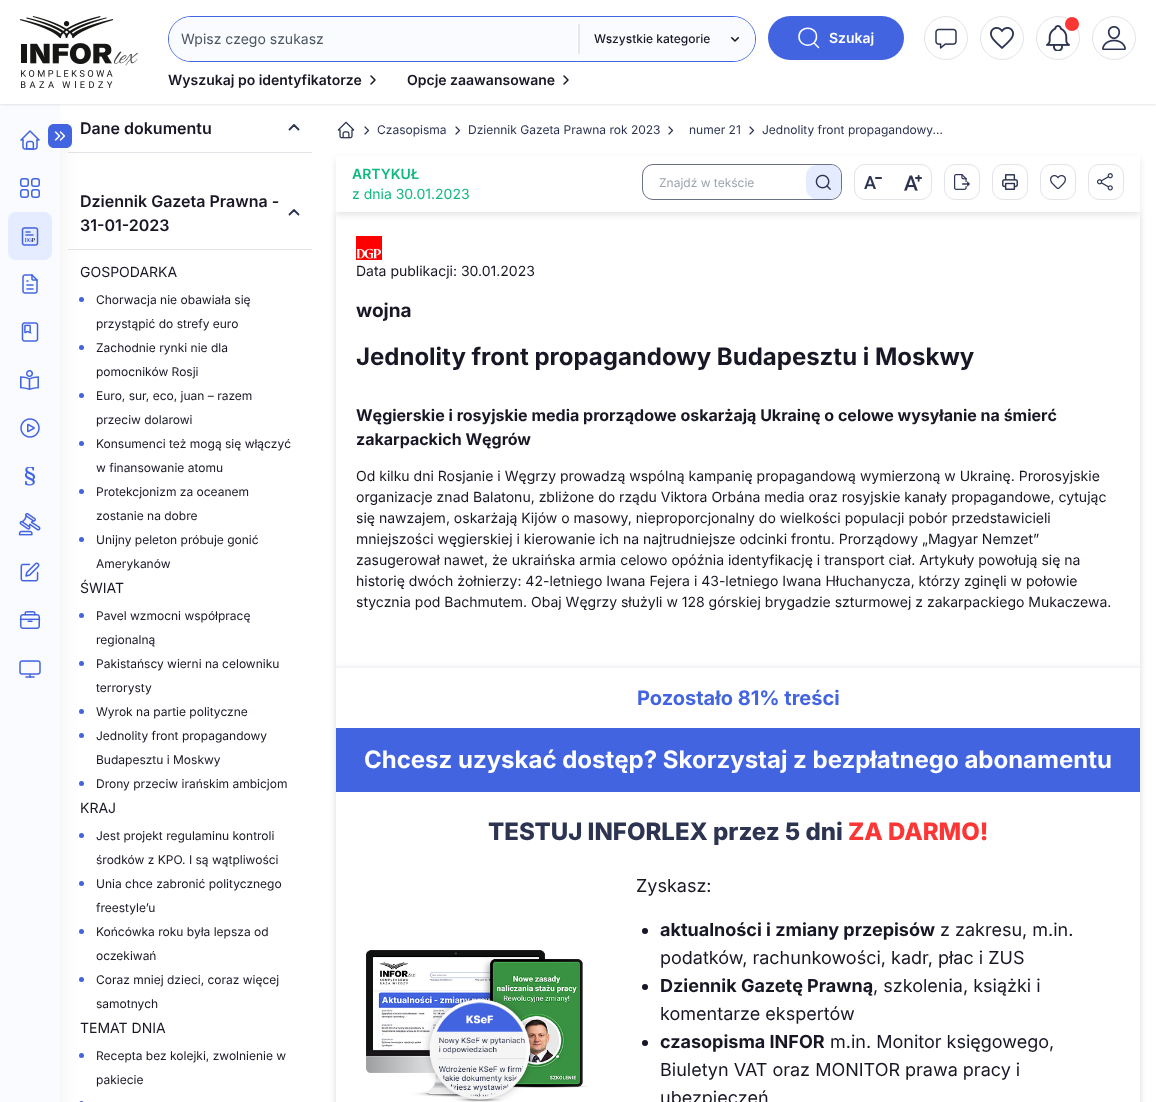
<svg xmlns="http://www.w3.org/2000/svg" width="1156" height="1102">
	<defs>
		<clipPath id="clip1"><rect x="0" y="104" width="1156" height="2" /></clipPath>
		<clipPath id="clip2"><path d="M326 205H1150V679H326ZM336 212H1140V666H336Z" clip-rule="evenodd" /></clipPath>
	</defs>
	<rect width="100%" height="100%" fill="#FFFFFF" />
	<rect x="68" y="152" width="244" height="1" fill="#E1E4E9" />
	<rect x="68" y="249" width="244" height="1" fill="#E1E4E9" />
	<circle cx="81.5" cy="299.5" r="2.5" fill="#4264E0" />
	<circle cx="81.5" cy="347.5" r="2.5" fill="#4264E0" />
	<circle cx="81.5" cy="395.5" r="2.5" fill="#4264E0" />
	<circle cx="81.5" cy="443.5" r="2.5" fill="#4264E0" />
	<circle cx="81.5" cy="491.5" r="2.5" fill="#4264E0" />
	<circle cx="81.5" cy="539.5" r="2.5" fill="#4264E0" />
	<circle cx="81.5" cy="615.5" r="2.5" fill="#4264E0" />
	<circle cx="81.5" cy="663.5" r="2.5" fill="#4264E0" />
	<circle cx="81.5" cy="711.5" r="2.5" fill="#4264E0" />
	<circle cx="81.5" cy="735.5" r="2.5" fill="#4264E0" />
	<circle cx="81.5" cy="783.5" r="2.5" fill="#4264E0" />
	<circle cx="81.5" cy="835.5" r="2.5" fill="#4264E0" />
	<circle cx="81.5" cy="883.5" r="2.5" fill="#4264E0" />
	<circle cx="81.5" cy="931.5" r="2.5" fill="#4264E0" />
	<circle cx="81.5" cy="979.5" r="2.5" fill="#4264E0" />
	<circle cx="81.5" cy="1055.5" r="2.5" fill="#4264E0" />
	<path d="M81.5 1101C83 1101 84 1102 84 1103.5V1102H79V1103.5C79 1102 80 1101 81.5 1101Z" fill="#4264E0" />
	<rect x="5" y="129" width="50" height="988" fill="#000000" fill-opacity="0.1" filter="blur(12.5px)" />
	<rect x="0" y="104" width="60" height="998" fill="#FAFBFF" />
	<g clip-path="url(#clip1)">
		<rect x="0" y="1" width="1156" height="104" fill="#000000" fill-opacity="0.1" filter="blur(1.5px)" />
	</g>
	<image x="20" y="16" width="118" height="72" href="assets/img1.png" />
	<rect x="168.5" y="16.5" width="587" height="45" rx="22.5" fill="none" stroke="#4264E0" />
	<path d="M191 17H577V61H191C179 61 169 51 169 39C169 27 179 17 191 17Z" fill="#FAFBFF" />
	<text x="181" y="44" font-family="Inter" font-size="14" fill="#4B5563">Wpisz czego szukasz</text>
	<path d="M578 17H733C745 17 755 27 755 39C755 51 745 61 733 61H578Z" fill="#FAFBFF" />
	<rect x="578" y="24" width="2" height="30" fill="#E5E7EB" />
	<text x="594" y="43" font-family="Inter" font-size="12" font-weight="500" fill="#171725">Wszystkie kategorie</text>
	<image x="731" y="37" width="8" height="5" href="assets/img2.png" />
	<rect x="768" y="16" width="136" height="44" rx="22" fill="#4264E0" />
	<path d="M816.5 36.5C816.5 48 799 48 799 36.5C799 25.5 816.5 25.5 816.5 36.5ZM818.5 47.5L814 43" fill="none" stroke="#FFFFFF" stroke-width="1.5" stroke-linecap="round" stroke-linejoin="round" />
	<text x="829" y="43" font-family="Inter" font-size="14" font-weight="600" fill="#FFFFFF">Szukaj</text>
	<text x="168" y="85" font-family="Inter" font-size="14" font-weight="600" fill="#171725">Wyszukaj po identyfikatorze</text>
	<path d="M371 76L375 80L371 84" fill="none" stroke="#171725" stroke-width="1.5" stroke-linecap="round" stroke-linejoin="round" />
	<text x="407" y="85" font-family="Inter" font-size="14" font-weight="600" fill="#171725">Opcje zaawansowane</text>
	<path d="M564 76L568 80L564 84" fill="none" stroke="#171725" stroke-width="1.5" stroke-linecap="round" stroke-linejoin="round" />
	<circle cx="946" cy="38" r="21.5" fill="none" stroke="#E2E4E9" />
	<image x="935" y="28" width="22" height="21" href="assets/img3.png" />
	<circle cx="1002" cy="38" r="21.5" fill="none" stroke="#E2E4E9" />
	<image x="990" y="27" width="24" height="22" href="assets/img4.png" />
	<circle cx="1058" cy="38" r="21.5" fill="none" stroke="#E2E4E9" />
	<image x="1046" y="25" width="24" height="26" href="assets/img5.png" />
	<circle cx="1072" cy="24" r="7" fill="#FC3535" />
	<circle cx="1114" cy="38" r="21.5" fill="none" stroke="#E2E4E9" />
	<image x="1102" y="26" width="24" height="24" href="assets/img6.png" />
	<image x="20" y="130" width="20" height="20" href="assets/img7.png" />
	<rect x="20.75" y="178.75" width="7.5" height="7.5" rx="2.25" fill="none" stroke="#4264E0" stroke-width="1.5" />
	<rect x="31.75" y="178.75" width="7.5" height="7.5" rx="2.25" fill="none" stroke="#4264E0" stroke-width="1.5" />
	<rect x="31.75" y="189.75" width="7.5" height="7.5" rx="2.25" fill="none" stroke="#4264E0" stroke-width="1.5" />
	<rect x="20.75" y="189.75" width="7.5" height="7.5" rx="2.25" fill="none" stroke="#4264E0" stroke-width="1.5" />
	<rect x="8" y="212" width="44" height="48" rx="8" fill="#E5ECFF" />
	<image x="21" y="227" width="18" height="19" href="assets/img8.png" />
	<image x="22" y="274" width="16" height="20" href="assets/img9.png" />
	<image x="21" y="322" width="18" height="20" href="assets/img10.png" />
	<image x="20" y="370" width="19" height="20" href="assets/img11.png" />
	<image x="20" y="418" width="20" height="20" href="assets/img12.png" />
	<image x="25" y="467" width="10" height="19" href="assets/img13.png" />
	<image x="18" y="512" width="23" height="24" href="assets/img14.png" />
	<image x="20" y="562" width="20" height="20" href="assets/img15.png" />
	<image x="19" y="611" width="22" height="18" href="assets/img16.png" />
	<image x="19" y="660" width="22" height="18" href="assets/img17.png" />
	<path d="M66 148H54C50.5 148 48 145.5 48 142V130C48 126.5 50.5 124 54 124H66C69.5 124 72 126.5 72 130V142C72 145.5 69.5 148 66 148Z" fill="#4264E0" />
	<image x="54" y="131" width="12" height="10" href="assets/img18.png" />
	<text x="80" y="134" font-family="Inter" font-size="16" font-weight="600" fill="#171725">Dane dokumentu</text>
	<path d="M289.5 129.5L294 125L298.5 129.5" fill="none" stroke="#2C3451" stroke-width="1.8" stroke-linecap="round" stroke-linejoin="round" />
	<g font-family="Inter" font-size="16" font-weight="600" fill="#171725">
		<text x="80" y="207">Dziennik Gazeta Prawna -</text>
		<text x="80" y="231">31-01-2023</text>
	</g>
	<path d="M289.5 214.5L294 210L298.5 214.5" fill="none" stroke="#2C3451" stroke-width="1.8" stroke-linecap="round" stroke-linejoin="round" />
	<text x="80" y="277" font-family="Inter" font-size="14" fill="#171725">GOSPODARKA</text>
	<g font-family="Inter" font-size="12" fill="#171725">
		<text x="96" y="304">Chorwacja nie obawiała się</text>
		<text x="96" y="328">przystąpić do strefy euro</text>
		<text x="96" y="352">Zachodnie rynki nie dla</text>
		<text x="96" y="376">pomocników Rosji</text>
		<text x="96" y="400">Euro, sur, eco, juan – razem</text>
		<text x="96" y="424">przeciw dolarowi</text>
		<text x="96" y="448">Konsumenci też mogą się włączyć</text>
		<text x="96" y="472">w finansowanie atomu</text>
		<text x="96" y="496">Protekcjonizm za oceanem</text>
		<text x="96" y="520">zostanie na dobre</text>
		<text x="96" y="544">Unijny peleton próbuje gonić</text>
		<text x="96" y="568">Amerykanów</text>
	</g>
	<text x="80" y="593" font-family="Inter" font-size="14" fill="#171725">ŚWIAT</text>
	<g font-family="Inter" font-size="12" fill="#171725">
		<text x="96" y="620">Pavel wzmocni współpracę</text>
		<text x="96" y="644">regionalną</text>
		<text x="96" y="668">Pakistańscy wierni na celowniku</text>
		<text x="96" y="692">terrorysty</text>
		<text x="96" y="716">Wyrok na partie polityczne</text>
		<text x="96" y="740">Jednolity front propagandowy</text>
		<text x="96" y="764">Budapesztu i Moskwy</text>
		<text x="96" y="788">Drony przeciw irańskim ambicjom</text>
	</g>
	<text x="80" y="813" font-family="Inter" font-size="14" fill="#171725">KRAJ</text>
	<g font-family="Inter" font-size="12" fill="#171725">
		<text x="96" y="840">Jest projekt regulaminu kontroli</text>
		<text x="96" y="864">środków z KPO. I są wątpliwości</text>
		<text x="96" y="888">Unia chce zabronić politycznego</text>
		<text x="96" y="912">freestyle’u</text>
		<text x="96" y="936">Końcówka roku była lepsza od</text>
		<text x="96" y="960">oczekiwań</text>
		<text x="96" y="984">Coraz mniej dzieci, coraz więcej</text>
		<text x="96" y="1008">samotnych</text>
	</g>
	<text x="80" y="1033" font-family="Inter" font-size="14" fill="#171725">TEMAT DNIA</text>
	<g font-family="Inter" font-size="12" fill="#171725">
		<text x="96" y="1060">Recepta bez kolejki, zwolnienie w</text>
		<text x="96" y="1084">pakiecie</text>
	</g>
	<image x="337" y="121" width="18" height="18" href="assets/img19.png" />
	<path d="M365 127L368.5 130.5L365 134" fill="none" stroke="#2C3451" stroke-width="1.2" stroke-linecap="round" stroke-linejoin="round" />
	<text x="377" y="134" font-family="Inter" font-size="12" fill="#2C3451">Czasopisma</text>
	<path d="M456 127L459.5 130.5L456 134" fill="none" stroke="#2C3451" stroke-width="1.2" stroke-linecap="round" stroke-linejoin="round" />
	<text x="468" y="134" font-family="Inter" font-size="12" fill="#2C3451">Dziennik Gazeta Prawna rok 2023</text>
	<path d="M669 127L672.5 130.5L669 134" fill="none" stroke="#2C3451" stroke-width="1.2" stroke-linecap="round" stroke-linejoin="round" />
	<text x="689" y="134" font-family="Inter" font-size="12" fill="#2C3451">numer 21</text>
	<path d="M750 127L753.5 130.5L750 134" fill="none" stroke="#2C3451" stroke-width="1.2" stroke-linecap="round" stroke-linejoin="round" />
	<text x="762" y="134" font-family="Inter" font-size="12" fill="#2C3451">Jednolity front propagandowy...</text>
	<rect x="336" y="159" width="804" height="56" fill="#000000" fill-opacity="0.1" filter="blur(3px)" />
	<g clip-path="url(#clip2)">
		<rect x="336" y="215" width="804" height="454" fill="#000000" fill-opacity="0.16" filter="blur(3px)" />
	</g>
	<rect x="336" y="156" width="804" height="56" fill="#FFFFFF" />
	<text x="352" y="179" font-family="Inter" font-size="14" font-weight="600" fill="#10B981">ARTYKUŁ</text>
	<text x="352" y="199" font-family="Inter" font-size="14" fill="#10B981">z dnia 30.01.2023</text>
	<rect x="642.5" y="164.5" width="199" height="35" rx="10.5" fill="none" stroke="#6B7185" />
	<text x="659" y="187" font-family="Inter" font-size="12" fill="#9CA3AF">Znajdź w tekście</text>
	<rect x="806" y="165" width="35" height="34" rx="11" fill="#E5ECFF" />
	<image x="815" y="174" width="16" height="16" href="assets/img20.png" />
	<rect x="854.5" y="164.5" width="77" height="35" rx="10.5" fill="none" stroke="#E2E4E9" />
	<image x="864" y="176" width="18" height="13" href="assets/img21.png" />
	<image x="904" y="175" width="18" height="16" href="assets/img22.png" />
	<rect x="944.5" y="164.5" width="35" height="35" rx="10.5" fill="none" stroke="#E2E4E9" />
	<image x="954" y="174" width="16" height="16" href="assets/img23.png" />
	<rect x="992.5" y="164.5" width="35" height="35" rx="10.5" fill="none" stroke="#E2E4E9" />
	<image x="1002" y="174" width="16" height="16" href="assets/img24.png" />
	<rect x="1040.5" y="164.5" width="35" height="35" rx="10.5" fill="none" stroke="#E2E4E9" />
	<image x="1050" y="175" width="16" height="14" href="assets/img25.png" />
	<rect x="1088.5" y="164.5" width="35" height="35" rx="10.5" fill="none" stroke="#E2E4E9" />
	<image x="1097" y="173" width="16" height="18" href="assets/img26.png" />
	<image x="356" y="236" width="26" height="24" href="assets/img27.png" />
	<text x="356" y="276" font-family="Inter" font-size="14" fill="#171725">Data publikacji: 30.01.2023</text>
	<text x="356" y="317" font-family="Inter" font-size="19" font-weight="700" fill="#171725">wojna</text>
	<text x="356" y="365" font-family="Inter" font-size="24" font-weight="700" fill="#171725">Jednolity front propagandowy Budapesztu i Moskwy</text>
	<g font-family="Inter" font-size="16" font-weight="700" fill="#171725">
		<text x="356" y="421">Węgierskie i rosyjskie media prorządowe oskarżają Ukrainę o celowe wysyłanie na śmierć</text>
		<text x="356" y="445">zakarpackich Węgrów</text>
	</g>
	<g font-family="Inter" font-size="14" fill="#171725">
		<text x="356" y="481">Od kilku dni Rosjanie i Węgrzy prowadzą wspólną kampanię propagandową wymierzoną w Ukrainę. Prorosyjskie</text>
		<text x="356" y="502">organizacje znad Balatonu, zbliżone do rządu Viktora Orbána media oraz rosyjskie kanały propagandowe, cytując</text>
		<text x="356" y="523">się nawzajem, oskarżają Kijów o masowy, nieproporcjonalny do wielkości populacji pobór przedstawicieli</text>
		<text x="356" y="544">mniejszości węgierskiej i kierowanie ich na najtrudniejsze odcinki frontu. Prorządowy „Magyar Nemzet”</text>
		<text x="356" y="565">zasugerował nawet, że ukraińska armia celowo opóźnia identyfikację i transport ciał. Artykuły powołują się na</text>
		<text x="356" y="586">historię dwóch żołnierzy: 42-letniego Iwana Fejera i 43-letniego Iwana Hłuchanycza, którzy zginęli w połowie</text>
		<text x="356" y="607">stycznia pod Bachmutem. Obaj Węgrzy służyli w 128 górskiej brygadzie szturmowej z zakarpackiego Mukaczewa.</text>
	</g>
	<rect x="336" y="669" width="804" height="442" fill="#000000" fill-opacity="0.16" filter="blur(3px)" />
	<rect x="336" y="668" width="804" height="434" fill="#FFFFFF" />
	<rect x="336" y="666" width="804" height="2" fill="#F2F4F7" />
	<text x="637" y="705" font-family="Inter" font-size="20" font-weight="700" fill="#4264E0">Pozostało 81% treści</text>
	<rect x="336" y="728" width="804" height="64" fill="#4264E0" />
	<text x="364" y="768" font-family="Inter" font-size="24" font-weight="700" fill="#FFFFFF">Chcesz uzyskać dostęp? Skorzystaj z bezpłatnego abonamentu</text>
	<text x="488" y="840" font-family="Inter" font-size="24" font-weight="800" fill="#2C3451">TESTUJ INFORLEX przez 5 dni</text>
	<text x="848" y="840" font-family="Inter" font-size="24" font-weight="800" fill="#FC3535">ZA DARMO!</text>
	<image x="366" y="950" width="222" height="152" href="assets/img28.png" />
	<text x="636" y="892" font-family="Inter" font-size="18" fill="#171725">Zyskasz:</text>
	<circle cx="645" cy="931" r="3" fill="#171725" />
	<text x="660" y="936" font-family="Inter" font-size="18" font-weight="700" fill="#171725">aktualności i zmiany przepisów</text>
	<g font-family="Inter" font-size="18" fill="#171725">
		<text x="940" y="936">z zakresu, m.in.</text>
		<text x="660" y="964">podatków, rachunkowości, kadr, płac i ZUS</text>
	</g>
	<circle cx="645" cy="987" r="3" fill="#171725" />
	<text x="660" y="992" font-family="Inter" font-size="18" font-weight="700" fill="#171725">Dziennik Gazetę Prawną</text>
	<g font-family="Inter" font-size="18" fill="#171725">
		<text x="873" y="992">, szkolenia, książki i</text>
		<text x="660" y="1020">komentarze ekspertów</text>
	</g>
	<circle cx="645" cy="1043" r="3" fill="#171725" />
	<text x="660" y="1048" font-family="Inter" font-size="18" font-weight="700" fill="#171725">czasopisma INFOR</text>
	<g font-family="Inter" font-size="18" fill="#171725">
		<text x="830" y="1048">m.in. Monitor księgowego,</text>
		<text x="660" y="1076">Biuletyn VAT oraz MONITOR prawa pracy i</text>
		<text x="660" y="1104">ubezpieczeń</text>
	</g>
</svg>
